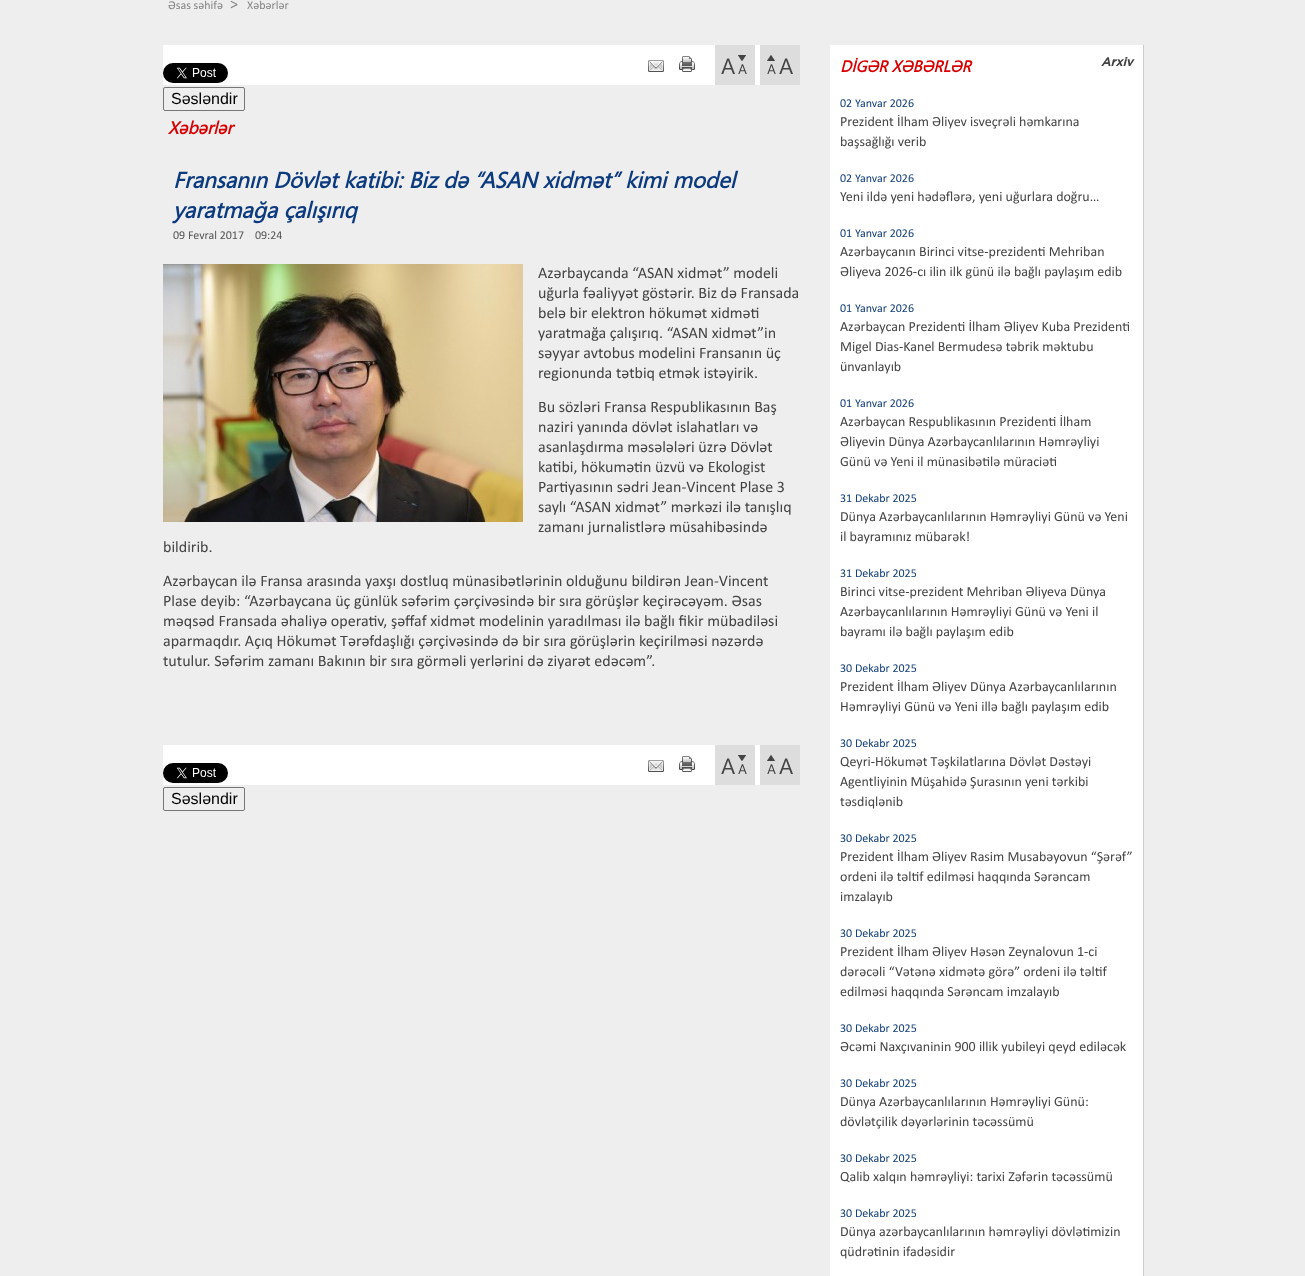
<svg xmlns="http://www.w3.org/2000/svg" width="1305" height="1276">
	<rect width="100%" height="100%" fill="#EEEEEE" />
	<text x="168" y="9" font-family="Calibri" font-size="12" fill="#858585">Əsas səhifə</text>
	<text x="230" y="9" font-family="Calibri" font-size="16" fill="#858585">&gt;</text>
	<text x="247" y="9" font-family="Calibri" font-size="12" fill="#858585">Xəbərlər</text>
	<rect x="163" y="45" width="597" height="40" fill="#FFFFFF" />
	<image x="163" y="63" width="65" height="20" href="assets/img1.png" />
	<image x="648" y="60" width="16" height="12" href="assets/img2.png" />
	<image x="679" y="56" width="16" height="16" href="assets/img3.png" />
	<image x="715" y="45" width="40" height="40" href="assets/img4.png" />
	<image x="760" y="45" width="40" height="40" href="assets/img5.png" />
	<rect x="163.5" y="87.5" width="81" height="23" rx="1.5" fill="none" stroke="#767676" />
	<text x="171" y="104" font-family="Liberation Sans" font-size="16" fill="#000000">Səsləndir</text>
	<text x="168" y="134" font-family="Segoe UI" font-size="17.5" font-weight="700" font-style="italic" fill="#D80000">Xəbərlər</text>
	<g font-family="Segoe UI" font-size="22.4" font-weight="700" font-style="italic" fill="#0B3A7F">
		<text x="173" y="188">Fransanın Dövlət katibi: Biz də “ASAN xidmət” kimi model</text>
		<text x="173" y="218">yaratmağa çalışırıq</text>
	</g>
	<text x="173" y="239" font-family="Calibri" font-size="12" fill="#555555" xml:space="preserve">09 Fevral 2017    09:24</text>
	<image x="163" y="264" width="360" height="258" href="assets/img6.png" />
	<g font-family="Calibri" font-size="16" fill="#444444">
		<text x="538" y="278">Azərbaycanda “ASAN xidmət” modeli</text>
		<text x="538" y="298">uğurla fəaliyyət göstərir. Biz də Fransada</text>
		<text x="538" y="318">belə bir elektron hökumət xidməti</text>
		<text x="538" y="338">yaratmağa çalışırıq. “ASAN xidmət”in</text>
		<text x="538" y="358">səyyar avtobus modelini Fransanın üç</text>
		<text x="538" y="378">regionunda tətbiq etmək istəyirik.</text>
		<text x="538" y="412">Bu sözləri Fransa Respublikasının Baş</text>
		<text x="538" y="432">naziri yanında dövlət islahatları və</text>
		<text x="538" y="452">asanlaşdırma məsələləri üzrə Dövlət</text>
		<text x="538" y="472">katibi, hökumətin üzvü və Ekologist</text>
		<text x="538" y="492">Partiyasının sədri Jean-Vincent Plase 3</text>
		<text x="538" y="512">saylı “ASAN xidmət” mərkəzi ilə tanışlıq</text>
		<text x="538" y="532">zamanı jurnalistlərə müsahibəsində</text>
		<text x="163" y="552">bildirib.</text>
		<text x="163" y="586">Azərbaycan ilə Fransa arasında yaxşı dostluq münasibətlərinin olduğunu bildirən Jean-Vincent</text>
		<text x="163" y="606">Plase deyib: “Azərbaycana üç günlük səfərim çərçivəsində bir sıra görüşlər keçirəcəyəm. Əsas</text>
		<text x="163" y="626">məqsəd Fransada əhaliyə operativ, şəffaf xidmət modelinin yaradılması ilə bağlı fikir mübadiləsi</text>
		<text x="163" y="646">aparmaqdır. Açıq Hökumət Tərəfdaşlığı çərçivəsində də bir sıra görüşlərin keçirilməsi nəzərdə</text>
		<text x="163" y="666">tutulur. Səfərim zamanı Bakının bir sıra görməli yerlərini də ziyarət edəcəm”.</text>
	</g>
	<rect x="163" y="745" width="597" height="40" fill="#FFFFFF" />
	<image x="163" y="763" width="65" height="20" href="assets/img1.png" />
	<image x="648" y="760" width="16" height="12" href="assets/img2.png" />
	<image x="679" y="756" width="16" height="16" href="assets/img3.png" />
	<image x="715" y="745" width="40" height="40" href="assets/img4.png" />
	<image x="760" y="745" width="40" height="40" href="assets/img5.png" />
	<rect x="163.5" y="787.5" width="81" height="23" rx="1.5" fill="none" stroke="#767676" />
	<text x="171" y="804" font-family="Liberation Sans" font-size="16" fill="#000000">Səsləndir</text>
	<rect x="830" y="45" width="313" height="1231" fill="#FFFFFF" />
	<rect x="1143" y="45" width="1" height="1231" fill="#CCCCCC" />
	<text x="840" y="72" font-family="Segoe UI" font-size="16" font-weight="700" font-style="italic" fill="#D80000">DİGƏR XƏBƏRLƏR</text>
	<text x="1101" y="66" font-family="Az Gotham" font-size="12" font-weight="700" font-style="italic" fill="#444444">Arxiv</text>
	<text x="840" y="107" font-family="Calibri" font-size="12" fill="#133F79">02 Yanvar 2026</text>
	<g font-family="Calibri" font-size="14" fill="#444444">
		<text x="840" y="126">Prezident İlham Əliyev isveçrəli həmkarına</text>
		<text x="840" y="146">başsağlığı verib</text>
	</g>
	<text x="840" y="182" font-family="Calibri" font-size="12" fill="#133F79">02 Yanvar 2026</text>
	<text x="840" y="201" font-family="Calibri" font-size="14" fill="#444444">Yeni ildə yeni hədəflərə, yeni uğurlara doğru…</text>
	<text x="840" y="237" font-family="Calibri" font-size="12" fill="#133F79">01 Yanvar 2026</text>
	<g font-family="Calibri" font-size="14" fill="#444444">
		<text x="840" y="256">Azərbaycanın Birinci vitse-prezidenti Mehriban</text>
		<text x="840" y="276">Əliyeva 2026-cı ilin ilk günü ilə bağlı paylaşım edib</text>
	</g>
	<text x="840" y="312" font-family="Calibri" font-size="12" fill="#133F79">01 Yanvar 2026</text>
	<g font-family="Calibri" font-size="14" fill="#444444">
		<text x="840" y="331">Azərbaycan Prezidenti İlham Əliyev Kuba Prezidenti</text>
		<text x="840" y="351">Migel Dias-Kanel Bermudesə təbrik məktubu</text>
		<text x="840" y="371">ünvanlayıb</text>
	</g>
	<text x="840" y="407" font-family="Calibri" font-size="12" fill="#133F79">01 Yanvar 2026</text>
	<g font-family="Calibri" font-size="14" fill="#444444">
		<text x="840" y="426">Azərbaycan Respublikasının Prezidenti İlham</text>
		<text x="840" y="446">Əliyevin Dünya Azərbaycanlılarının Həmrəyliyi</text>
		<text x="840" y="466">Günü və Yeni il münasibətilə müraciəti</text>
	</g>
	<text x="840" y="502" font-family="Calibri" font-size="12" fill="#133F79">31 Dekabr 2025</text>
	<g font-family="Calibri" font-size="14" fill="#444444">
		<text x="840" y="521">Dünya Azərbaycanlılarının Həmrəyliyi Günü və Yeni</text>
		<text x="840" y="541">il bayramınız mübarək!</text>
	</g>
	<text x="840" y="577" font-family="Calibri" font-size="12" fill="#133F79">31 Dekabr 2025</text>
	<g font-family="Calibri" font-size="14" fill="#444444">
		<text x="840" y="596">Birinci vitse-prezident Mehriban Əliyeva Dünya</text>
		<text x="840" y="616">Azərbaycanlılarının Həmrəyliyi Günü və Yeni il</text>
		<text x="840" y="636">bayramı ilə bağlı paylaşım edib</text>
	</g>
	<text x="840" y="672" font-family="Calibri" font-size="12" fill="#133F79">30 Dekabr 2025</text>
	<g font-family="Calibri" font-size="14" fill="#444444">
		<text x="840" y="691">Prezident İlham Əliyev Dünya Azərbaycanlılarının</text>
		<text x="840" y="711">Həmrəyliyi Günü və Yeni illə bağlı paylaşım edib</text>
	</g>
	<text x="840" y="747" font-family="Calibri" font-size="12" fill="#133F79">30 Dekabr 2025</text>
	<g font-family="Calibri" font-size="14" fill="#444444">
		<text x="840" y="766">Qeyri-Hökumət Təşkilatlarına Dövlət Dəstəyi</text>
		<text x="840" y="786">Agentliyinin Müşahidə Şurasının yeni tərkibi</text>
		<text x="840" y="806">təsdiqlənib</text>
	</g>
	<text x="840" y="842" font-family="Calibri" font-size="12" fill="#133F79">30 Dekabr 2025</text>
	<g font-family="Calibri" font-size="14" fill="#444444">
		<text x="840" y="861">Prezident İlham Əliyev Rasim Musabəyovun “Şərəf”</text>
		<text x="840" y="881">ordeni ilə təltif edilməsi haqqında Sərəncam</text>
		<text x="840" y="901">imzalayıb</text>
	</g>
	<text x="840" y="937" font-family="Calibri" font-size="12" fill="#133F79">30 Dekabr 2025</text>
	<g font-family="Calibri" font-size="14" fill="#444444">
		<text x="840" y="956">Prezident İlham Əliyev Həsən Zeynalovun 1-ci</text>
		<text x="840" y="976">dərəcəli “Vətənə xidmətə görə” ordeni ilə təltif</text>
		<text x="840" y="996">edilməsi haqqında Sərəncam imzalayıb</text>
	</g>
	<text x="840" y="1032" font-family="Calibri" font-size="12" fill="#133F79">30 Dekabr 2025</text>
	<text x="840" y="1051" font-family="Calibri" font-size="14" fill="#444444">Əcəmi Naxçıvaninin 900 illik yubileyi qeyd ediləcək</text>
	<text x="840" y="1087" font-family="Calibri" font-size="12" fill="#133F79">30 Dekabr 2025</text>
	<g font-family="Calibri" font-size="14" fill="#444444">
		<text x="840" y="1106">Dünya Azərbaycanlılarının Həmrəyliyi Günü:</text>
		<text x="840" y="1126">dövlətçilik dəyərlərinin təcəssümü</text>
	</g>
	<text x="840" y="1162" font-family="Calibri" font-size="12" fill="#133F79">30 Dekabr 2025</text>
	<text x="840" y="1181" font-family="Calibri" font-size="14" fill="#444444">Qalib xalqın həmrəyliyi: tarixi Zəfərin təcəssümü</text>
	<text x="840" y="1217" font-family="Calibri" font-size="12" fill="#133F79">30 Dekabr 2025</text>
	<g font-family="Calibri" font-size="14" fill="#444444">
		<text x="840" y="1236">Dünya azərbaycanlılarının həmrəyliyi dövlətimizin</text>
		<text x="840" y="1256">qüdrətinin ifadəsidir</text>
	</g>
</svg>
